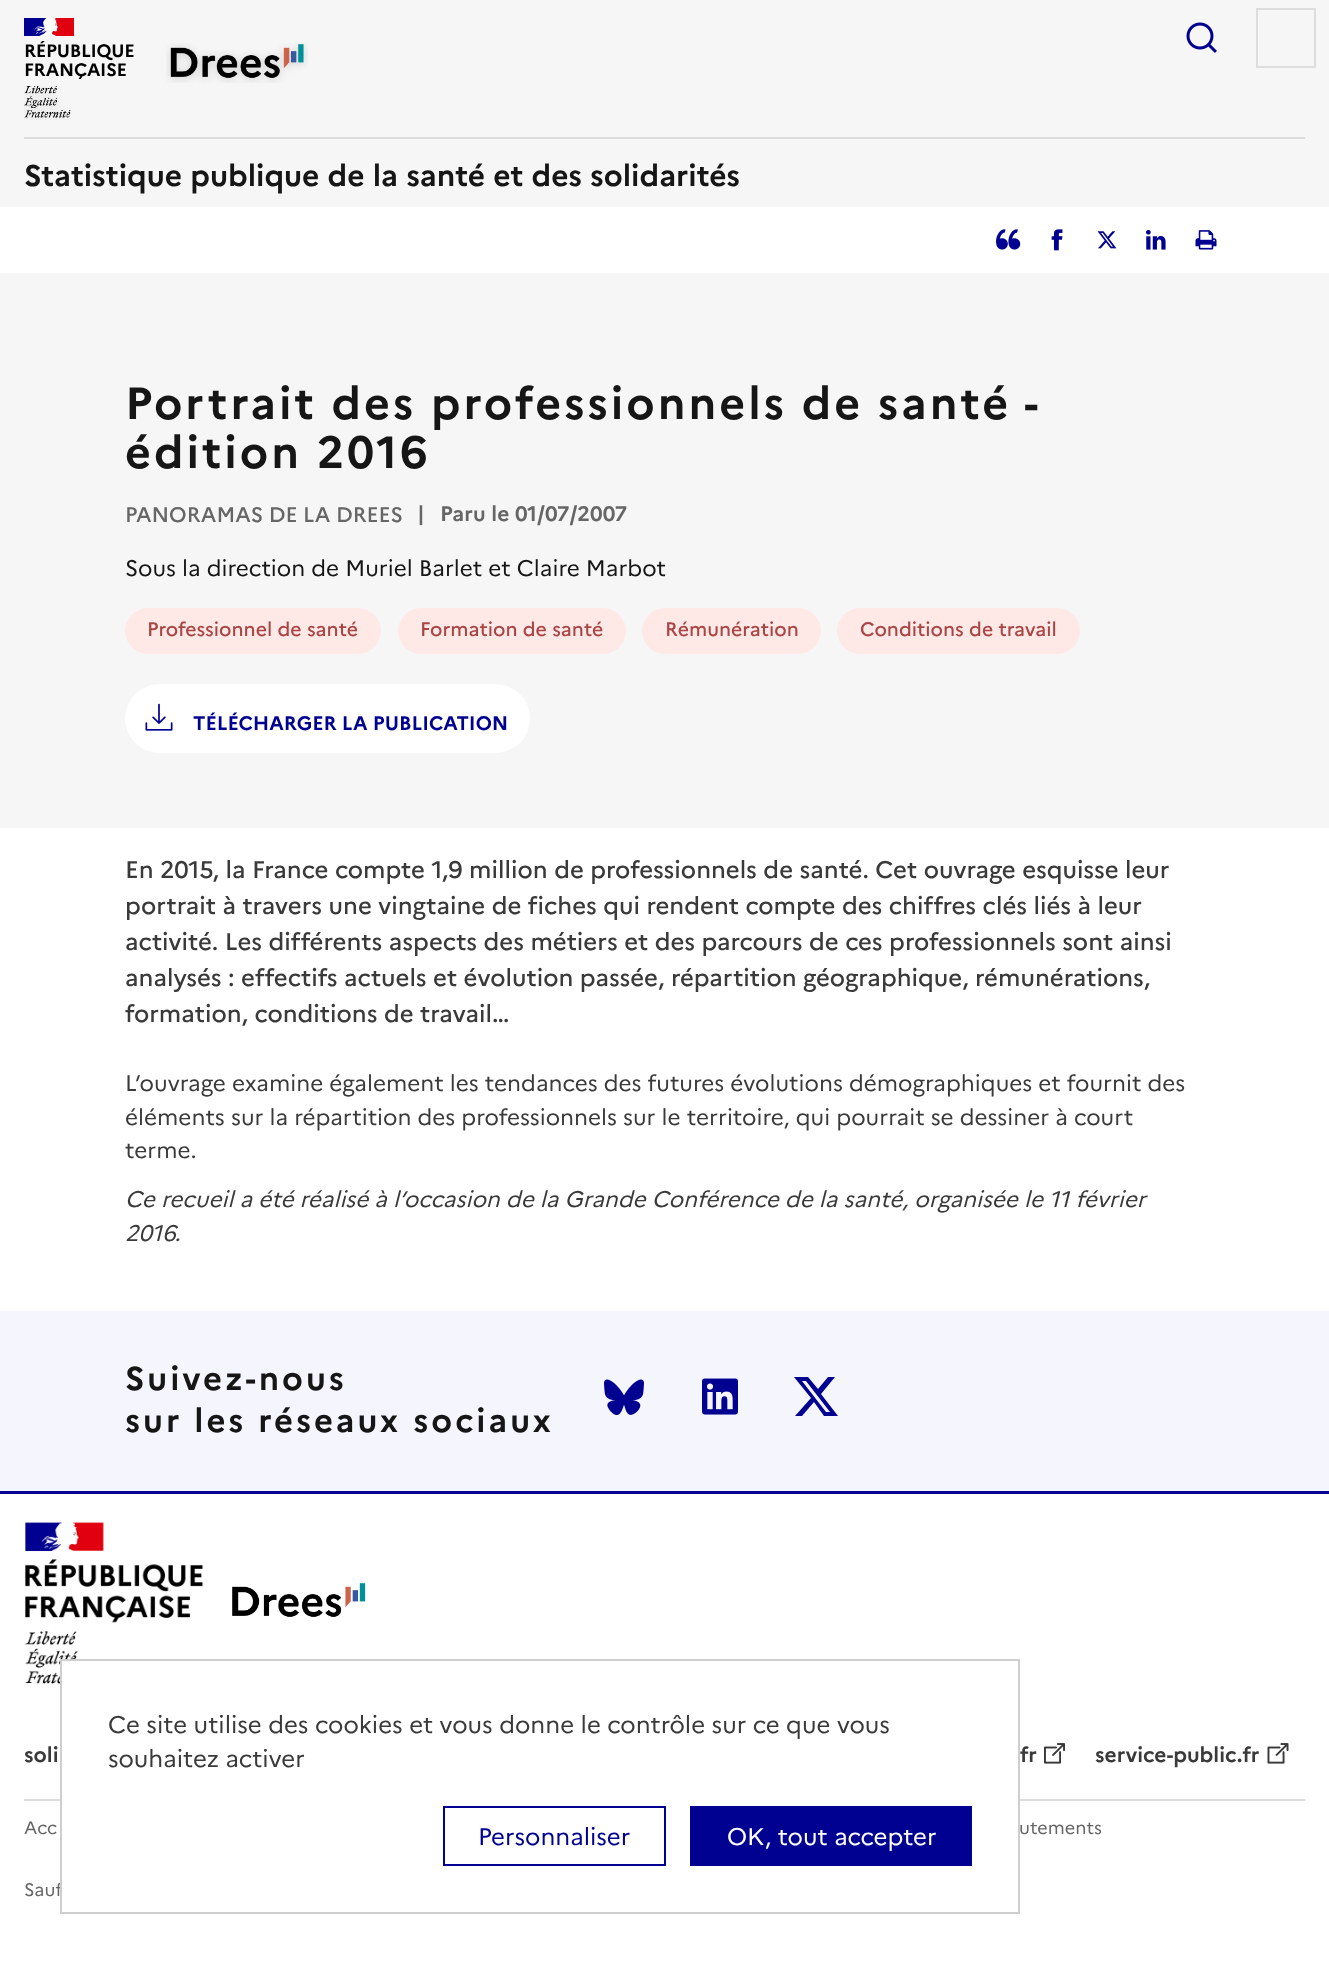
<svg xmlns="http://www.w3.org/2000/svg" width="1329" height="1973">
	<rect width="100%" height="100%" fill="#FFFFFF" />
	<rect x="0" y="0" width="1329" height="207" fill="#F6F6F6" />
	<rect x="24" y="18" width="23" height="18" fill="#000091" />
	<rect x="51" y="18" width="23" height="18" fill="#E1000F" />
	<image x="34" y="18" width="24" height="18" href="assets/img1.png" />
	<g font-family="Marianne" font-size="18" font-weight="700" letter-spacing="-0.25" fill="#000000">
		<text x="24" y="57">RÉPUBLIQUE</text>
		<text x="24" y="76">FRANÇAISE</text>
	</g>
	<image x="24" y="86" width="47" height="34" href="assets/img2.png" />
	<image x="166" y="43" width="142" height="40" href="assets/img3.png" />
	<image x="1186" y="22" width="31" height="31" href="assets/img4.png" />
	<rect x="1257" y="9" width="58" height="58" fill="none" stroke="#DDDDDD" stroke-width="2" />
	<rect x="24" y="137" width="1281" height="2" fill="#DDDDDD" />
	<text x="24" y="186" font-family="Marianne" font-size="30" font-weight="700" fill="#161616">Statistique publique de la santé et des solidarités</text>
	<image x="996" y="229" width="25" height="21" href="assets/img5.png" />
	<image x="1051" y="229" width="12" height="22" href="assets/img6.png" />
	<image x="1097" y="231" width="20" height="18" href="assets/img7.png" />
	<image x="1146" y="230" width="20" height="20" href="assets/img8.png" />
	<image x="1195" y="230" width="22" height="20" href="assets/img9.png" />
	<rect x="0" y="273" width="1329" height="555" fill="#F6F6F6" />
	<g font-family="Marianne" font-size="45" font-weight="700" letter-spacing="3" fill="#161616">
		<text x="125" y="419" word-spacing="-0.5">Portrait des professionnels de santé -</text>
		<text x="125" y="468">édition 2016</text>
	</g>
	<text x="125" y="522" font-family="Marianne" font-size="21" font-weight="500" fill="#666666">PANORAMAS DE LA DREES</text>
	<g font-family="Marianne" font-size="21" font-weight="700" fill="#666666">
		<text x="417" y="521">|</text>
		<text x="440" y="521">Paru le 01/07/2007</text>
	</g>
	<text x="125" y="576" font-family="Marianne" font-size="22.5" fill="#161616">Sous la direction de Muriel Barlet et Claire Marbot</text>
	<rect x="125" y="608" width="256" height="46" rx="23" fill="#FEE9E7" />
	<text x="147" y="636" font-family="Marianne" font-size="19.5" font-weight="500" fill="#A94645">Professionnel de santé</text>
	<rect x="398" y="608" width="228" height="46" rx="23" fill="#FEE9E7" />
	<text x="420" y="636" font-family="Marianne" font-size="19.5" font-weight="500" fill="#A94645">Formation de santé</text>
	<rect x="642" y="608" width="179" height="46" rx="23" fill="#FEE9E7" />
	<text x="665" y="636" font-family="Marianne" font-size="19.5" font-weight="500" fill="#A94645">Rémunération</text>
	<rect x="837" y="608" width="243" height="46" rx="23" fill="#FEE9E7" />
	<text x="860" y="636" font-family="Marianne" font-size="19.5" font-weight="500" fill="#A94645">Conditions de travail</text>
	<rect x="125" y="684" width="405" height="69" rx="34.5" fill="#FFFFFF" />
	<image x="145" y="703" width="28" height="28" href="assets/img10.png" />
	<text x="193" y="730" font-family="Marianne" font-size="19.5" font-weight="700" fill="#000091">TÉLÉCHARGER LA PUBLICATION</text>
	<g font-family="Marianne" font-size="24" font-weight="500" fill="#3A3A3A">
		<text x="125" y="878">En 2015, la France compte 1,9 million de professionnels de santé. Cet ouvrage esquisse leur</text>
		<text x="125" y="914">portrait à travers une vingtaine de fiches qui rendent compte des chiffres clés liés à leur</text>
		<text x="125" y="950">activité. Les différents aspects des métiers et des parcours de ces professionnels sont ainsi</text>
		<text x="125" y="986">analysés : effectifs actuels et évolution passée, répartition géographique, rémunérations,</text>
		<text x="125" y="1022">formation, conditions de travail…</text>
	</g>
	<g font-family="Marianne" font-size="22.5" fill="#3A3A3A">
		<text x="125" y="1091">L’ouvrage examine également les tendances des futures évolutions démographiques et fournit des</text>
		<text x="125" y="1125">éléments sur la répartition des professionnels sur le territoire, qui pourrait se dessiner à court</text>
		<text x="125" y="1158">terme.</text>
	</g>
	<g font-family="Marianne" font-size="22.5" font-style="italic" fill="#3A3A3A">
		<text x="125" y="1207">Ce recueil a été réalisé à l’occasion de la Grande Conférence de la santé, organisée le 11 février</text>
		<text x="125" y="1241">2016.</text>
	</g>
	<rect x="0" y="1311" width="1329" height="180" fill="#F5F5FE" />
	<rect x="0" y="1491" width="1329" height="3" fill="#000091" />
	<g font-family="Marianne" font-size="33" font-weight="700" letter-spacing="3" fill="#161616">
		<text x="125" y="1390">Suivez-nous</text>
		<text x="125" y="1432">sur les réseaux sociaux</text>
	</g>
	<image x="604" y="1379" width="40" height="36" href="assets/img11.png" />
	<image x="702" y="1378" width="36" height="37" href="assets/img12.png" />
	<path d="M828 1377H835L821 1394L838 1416H824L814 1402L802 1416H795L811 1398L794 1377H808L818 1389ZM826 1412H830L806 1381H802Z" fill="#000091" />
	<image x="25" y="1522" width="179" height="162" href="assets/img13.png" />
	<image x="232" y="1583" width="134" height="34" href="assets/img14.png" />
	<g font-family="Marianne" font-size="21" font-weight="700" fill="#3A3A3A">
		<text x="24" y="1762">soli</text>
		<text x="1020" y="1762">fr</text>
	</g>
	<image x="1044" y="1743" width="21" height="21" href="assets/img15.png" />
	<text x="1095" y="1762" font-family="Marianne" font-size="21" font-weight="700" fill="#3A3A3A">service-public.fr</text>
	<image x="1267" y="1743" width="22" height="21" href="assets/img16.png" />
	<rect x="24" y="1799" width="1281" height="2" fill="#DDDDDD" />
	<g font-family="Marianne" font-size="18" fill="#666666">
		<text x="24" y="1834">Acc</text>
		<text x="1019" y="1834">utements</text>
		<text x="24" y="1896">Sauf</text>
	</g>
	<rect x="62" y="1661" width="956" height="228" fill="#FFFFFF" />
	<rect x="61" y="1660" width="958" height="253" fill="none" stroke="#CECECE" stroke-width="2" />
	<g font-family="Marianne" font-size="24" fill="#3A3A3A">
		<text x="108" y="1733">Ce site utilise des cookies et vous donne le contrôle sur ce que vous</text>
		<text x="108" y="1767">souhaitez activer</text>
	</g>
	<rect x="444" y="1807" width="221" height="58" fill="none" stroke="#000091" stroke-width="2" />
	<text x="478" y="1845" font-family="Marianne" font-size="24" fill="#000091">Personnaliser</text>
	<rect x="690" y="1806" width="282" height="60" fill="#000091" />
	<text x="727" y="1845" font-family="Marianne" font-size="24" fill="#FFFFFF">OK, tout accepter</text>
</svg>
